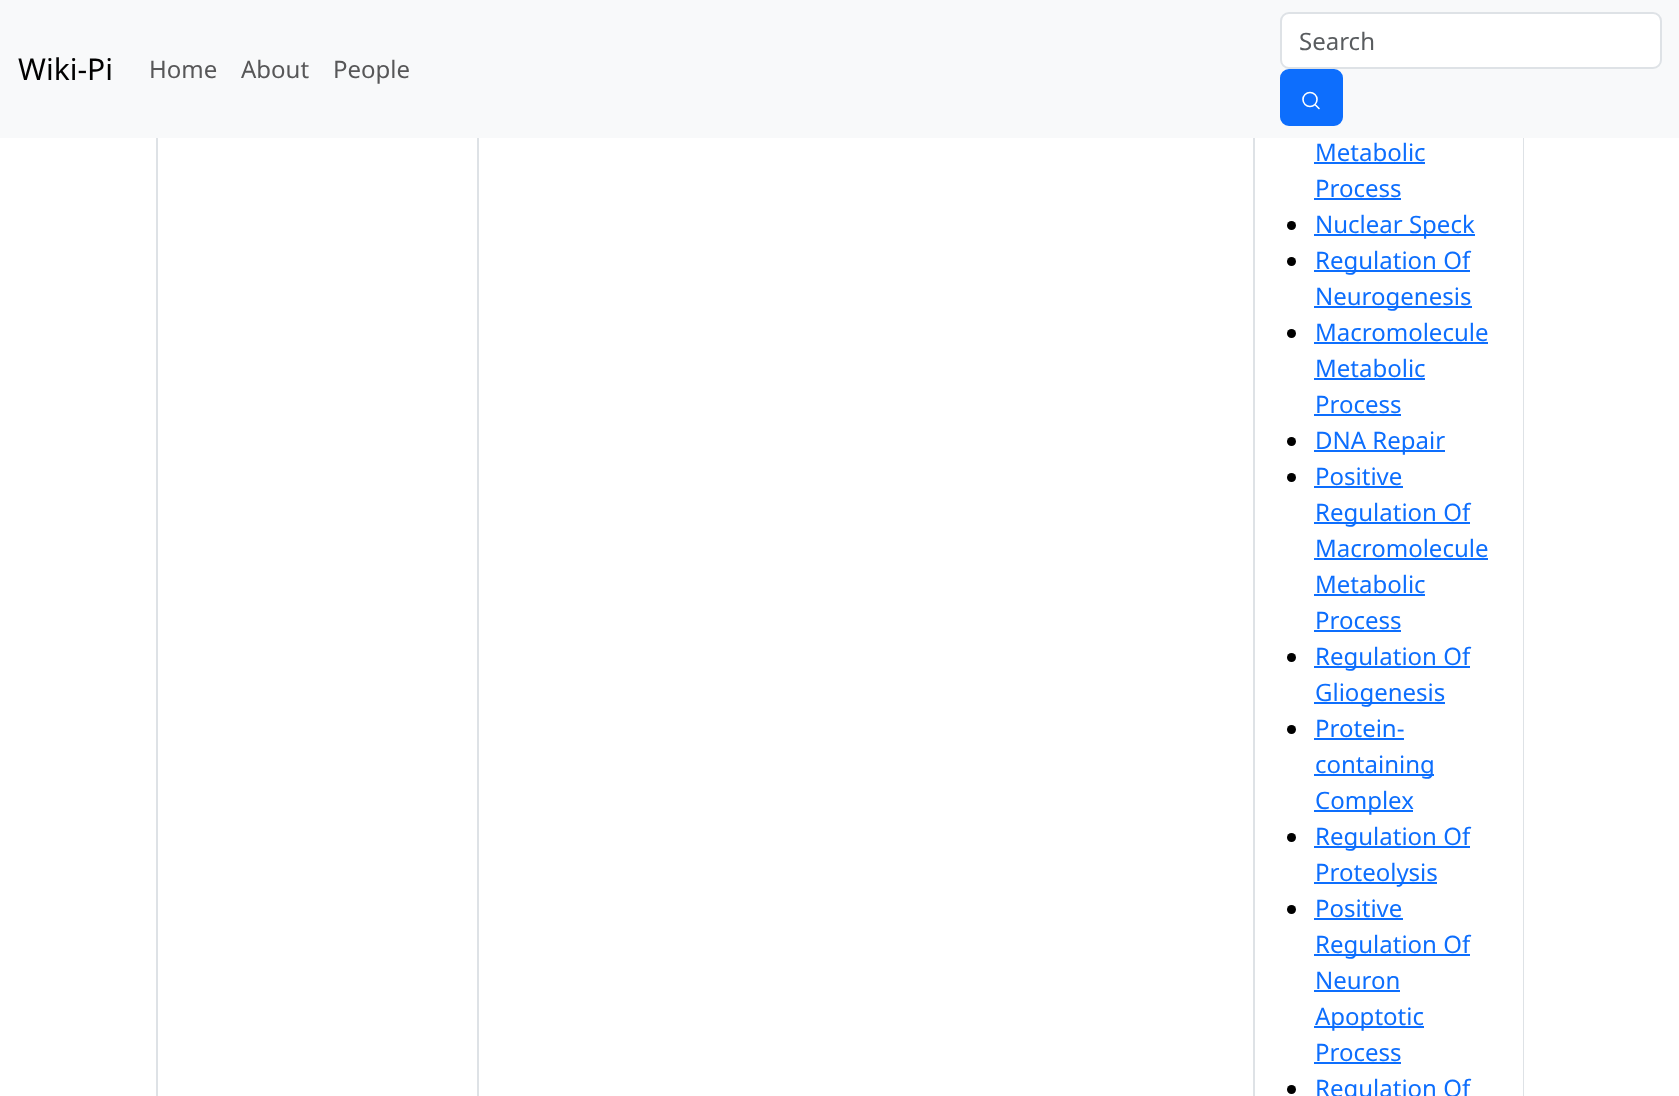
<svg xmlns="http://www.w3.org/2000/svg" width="1679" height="1096">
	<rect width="100%" height="100%" fill="#FFFFFF" />
	<rect x="0" y="0" width="1679" height="138" fill="#F8F9FA" />
	<text x="18" y="80" font-family="Noto Sans" font-size="30" fill="#000000">Wiki-Pi</text>
	<rect x="1281" y="13" width="380" height="55" rx="8" fill="#FFFFFF" stroke="#DEE2E6" stroke-width="2" />
	<text x="1299" y="50" font-family="Noto Sans" font-size="24" fill="#595C5F">Search</text>
	<rect x="1281" y="70" width="61" height="55" rx="8" fill="#0D6EFD" stroke="#0D6EFD" stroke-width="2" />
	<circle cx="1310" cy="99.5" r="7" fill="none" stroke="#FFFFFF" stroke-width="1.6" />
	<path d="M1319 108.5L1315.5 105" fill="none" stroke="#FFFFFF" stroke-width="1.6" stroke-linecap="round" />
	<g font-family="Noto Sans" font-size="24" fill="#575758">
		<text x="149" y="78">Home</text>
		<text x="241" y="78">About</text>
		<text x="333" y="78">People</text>
	</g>
	<rect x="156" y="138" width="2" height="958" fill="#DEE2E6" />
	<rect x="477" y="138" width="2" height="958" fill="#DEE2E6" />
	<rect x="1523" y="138" width="1" height="958" fill="#DEE2E6" />
	<rect x="1253" y="138" width="2" height="958" fill="#DEE2E6" />
	<text x="1315" y="161" font-family="Noto Sans" font-size="24" fill="#0D6EFD">Metabolic</text>
	<rect x="1314" y="162" width="111" height="2" fill="#0D6EFD" />
	<text x="1315" y="197" font-family="Noto Sans" font-size="24" fill="#0D6EFD">Process</text>
	<rect x="1314" y="198" width="87" height="2" fill="#0D6EFD" />
	<circle cx="1291.5" cy="225.5" r="4.5" fill="#000000" />
	<rect x="1314" y="234" width="161" height="2" fill="#0D6EFD" />
	<text x="1315" y="233" font-family="Noto Sans" font-size="24" fill="#0D6EFD">Nuclear Speck</text>
	<circle cx="1291.5" cy="261.5" r="4.5" fill="#000000" />
	<rect x="1314" y="270" width="156" height="2" fill="#0D6EFD" />
	<text x="1315" y="269" font-family="Noto Sans" font-size="24" fill="#0D6EFD">Regulation Of</text>
	<rect x="1314" y="306" width="158" height="2" fill="#0D6EFD" />
	<text x="1315" y="305" font-family="Noto Sans" font-size="24" fill="#0D6EFD">Neurogenesis</text>
	<circle cx="1291.5" cy="333.5" r="4.5" fill="#000000" />
	<text x="1315" y="341" font-family="Noto Sans" font-size="24" fill="#0D6EFD">Macromolecule</text>
	<rect x="1314" y="342" width="174" height="2" fill="#0D6EFD" />
	<text x="1315" y="377" font-family="Noto Sans" font-size="24" fill="#0D6EFD">Metabolic</text>
	<rect x="1314" y="378" width="111" height="2" fill="#0D6EFD" />
	<text x="1315" y="413" font-family="Noto Sans" font-size="24" fill="#0D6EFD">Process</text>
	<rect x="1314" y="414" width="87" height="2" fill="#0D6EFD" />
	<circle cx="1291.5" cy="441.5" r="4.5" fill="#000000" />
	<rect x="1314" y="450" width="131" height="2" fill="#0D6EFD" />
	<text x="1315" y="449" font-family="Noto Sans" font-size="24" fill="#0D6EFD">DNA Repair</text>
	<circle cx="1291.5" cy="477.5" r="4.5" fill="#000000" />
	<text x="1315" y="485" font-family="Noto Sans" font-size="24" fill="#0D6EFD">Positive</text>
	<rect x="1314" y="486" width="89" height="2" fill="#0D6EFD" />
	<rect x="1314" y="522" width="156" height="2" fill="#0D6EFD" />
	<g font-family="Noto Sans" font-size="24" fill="#0D6EFD">
		<text x="1315" y="521">Regulation Of</text>
		<text x="1315" y="557">Macromolecule</text>
	</g>
	<rect x="1314" y="558" width="174" height="2" fill="#0D6EFD" />
	<text x="1315" y="593" font-family="Noto Sans" font-size="24" fill="#0D6EFD">Metabolic</text>
	<rect x="1314" y="594" width="111" height="2" fill="#0D6EFD" />
	<text x="1315" y="629" font-family="Noto Sans" font-size="24" fill="#0D6EFD">Process</text>
	<rect x="1314" y="630" width="87" height="2" fill="#0D6EFD" />
	<circle cx="1291.5" cy="657.5" r="4.5" fill="#000000" />
	<rect x="1314" y="666" width="156" height="2" fill="#0D6EFD" />
	<text x="1315" y="665" font-family="Noto Sans" font-size="24" fill="#0D6EFD">Regulation Of</text>
	<rect x="1314" y="702" width="131" height="2" fill="#0D6EFD" />
	<text x="1315" y="701" font-family="Noto Sans" font-size="24" fill="#0D6EFD">Gliogenesis</text>
	<circle cx="1291.5" cy="729.5" r="4.5" fill="#000000" />
	<text x="1315" y="737" font-family="Noto Sans" font-size="24" fill="#0D6EFD">Protein-</text>
	<rect x="1314" y="738" width="90" height="2" fill="#0D6EFD" />
	<rect x="1314" y="774" width="120" height="2" fill="#0D6EFD" />
	<text x="1315" y="773" font-family="Noto Sans" font-size="24" fill="#0D6EFD">containing</text>
	<rect x="1314" y="810" width="99" height="2" fill="#0D6EFD" />
	<text x="1315" y="809" font-family="Noto Sans" font-size="24" fill="#0D6EFD">Complex</text>
	<circle cx="1291.5" cy="837.5" r="4.5" fill="#000000" />
	<rect x="1314" y="846" width="156" height="2" fill="#0D6EFD" />
	<text x="1315" y="845" font-family="Noto Sans" font-size="24" fill="#0D6EFD">Regulation Of</text>
	<rect x="1314" y="882" width="123" height="2" fill="#0D6EFD" />
	<text x="1315" y="881" font-family="Noto Sans" font-size="24" fill="#0D6EFD">Proteolysis</text>
	<circle cx="1291.5" cy="909.5" r="4.5" fill="#000000" />
	<text x="1315" y="917" font-family="Noto Sans" font-size="24" fill="#0D6EFD">Positive</text>
	<rect x="1314" y="918" width="89" height="2" fill="#0D6EFD" />
	<rect x="1314" y="954" width="156" height="2" fill="#0D6EFD" />
	<g font-family="Noto Sans" font-size="24" fill="#0D6EFD">
		<text x="1315" y="953">Regulation Of</text>
		<text x="1315" y="989">Neuron</text>
	</g>
	<rect x="1314" y="990" width="86" height="2" fill="#0D6EFD" />
	<rect x="1314" y="1026" width="110" height="2" fill="#0D6EFD" />
	<g font-family="Noto Sans" font-size="24" fill="#0D6EFD">
		<text x="1315" y="1025">Apoptotic</text>
		<text x="1315" y="1061">Process</text>
	</g>
	<rect x="1314" y="1062" width="87" height="2" fill="#0D6EFD" />
	<circle cx="1291.5" cy="1089.5" r="4.5" fill="#000000" />
	<text x="1315" y="1097" font-family="Noto Sans" font-size="24" fill="#0D6EFD">Regulation Of</text>
</svg>
